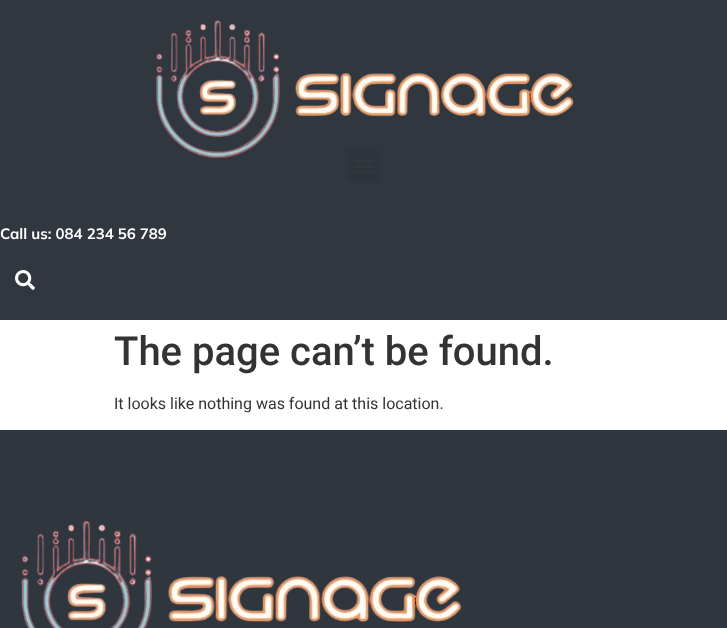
<svg xmlns="http://www.w3.org/2000/svg" width="727" height="628">
	<rect width="100%" height="100%" fill="#FFFFFF" />
	<rect x="0" y="0" width="727" height="320" fill="#30373E" />
	<image x="156" y="20" width="418" height="138" href="assets/img1.png" />
	<rect x="347" y="149" width="33" height="33" rx="3" fill="#2E343B" />
	<image x="354" y="160" width="20" height="13" href="assets/img2.png" />
	<text x="0" y="239" font-family="Mulish" font-size="15" font-weight="700" fill="#FFFFFF">Call us: 084 234 56 789</text>
	<image x="15" y="270" width="20" height="20" href="assets/img3.png" />
	<text x="114" y="365" font-family="Roboto" font-size="40" font-weight="500" fill="#333333">The page can’t be found.</text>
	<text x="114" y="409" font-family="Roboto" font-size="16" fill="#333333">It looks like nothing was found at this location.</text>
	<rect x="0" y="430" width="727" height="198" fill="#2F363D" />
	<image x="21" y="520" width="441" height="108" href="assets/img4.png" />
</svg>
